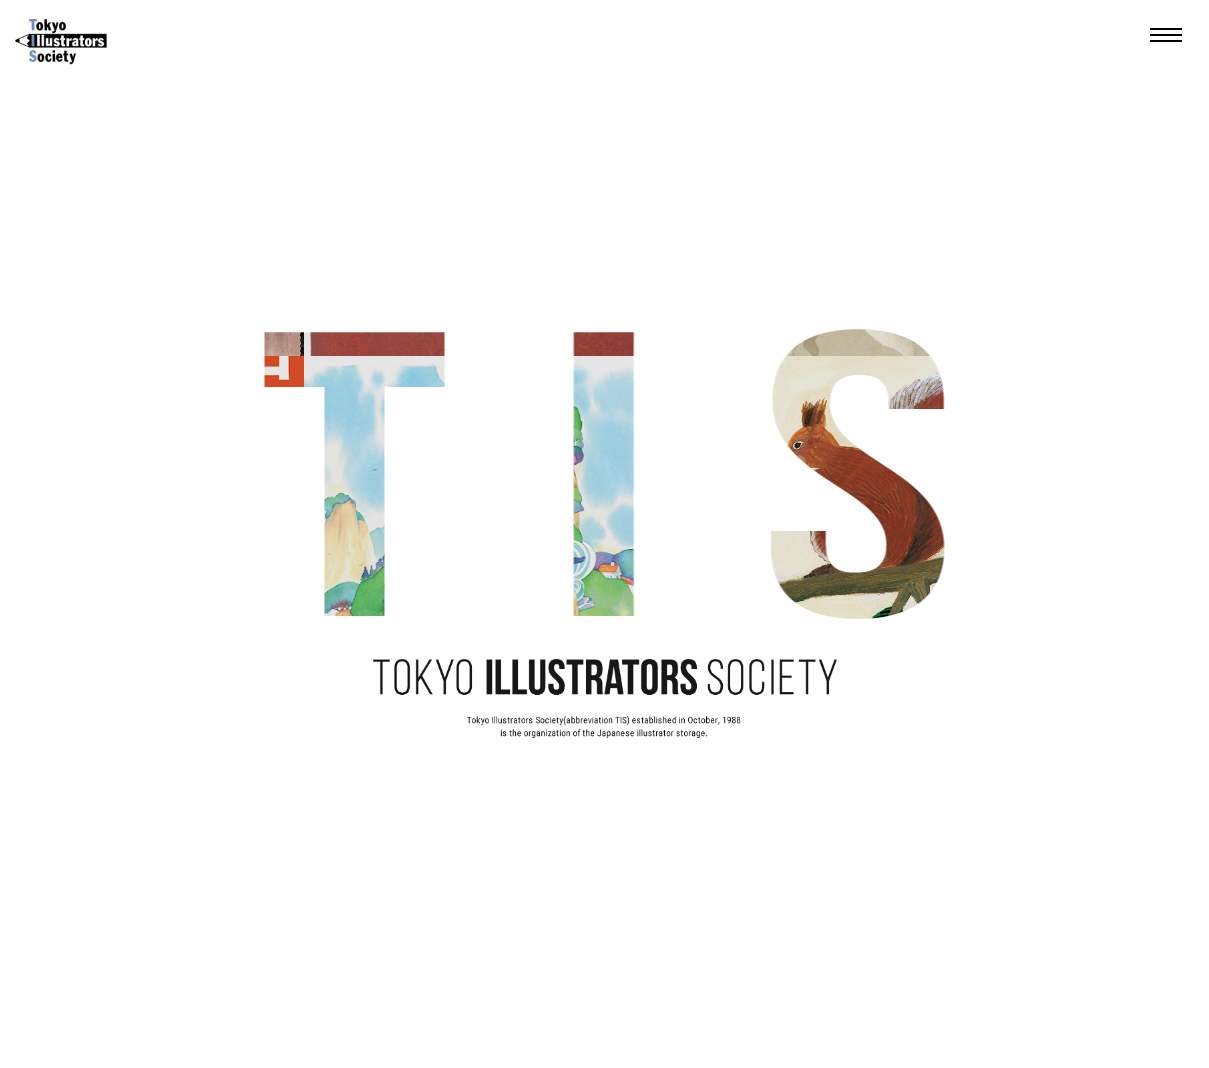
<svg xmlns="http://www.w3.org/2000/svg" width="1209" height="1068">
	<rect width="100%" height="100%" fill="#FFFFFF" />
	<image x="264" y="332" width="40" height="24" href="assets/img3.png" />
	<image x="304" y="332" width="331" height="24" href="assets/img4.png" />
	<image x="785" y="329" width="146" height="27" href="assets/img5.png" />
	<image x="264" y="356" width="40" height="31" href="assets/img6.png" />
	<image x="304" y="356" width="331" height="260" href="assets/img7.png" />
	<image x="770" y="356" width="175" height="263" href="assets/img8.png" />
	<image x="0" y="0" width="1209" height="1068" href="assets/img1.png" />
	<image x="373" y="659" width="464" height="79" href="assets/img2.png" />
	<image x="15" y="19" width="92" height="46" href="assets/img9.png" />
	<image x="1150" y="28" width="32" height="14" href="assets/img10.png" />
</svg>
